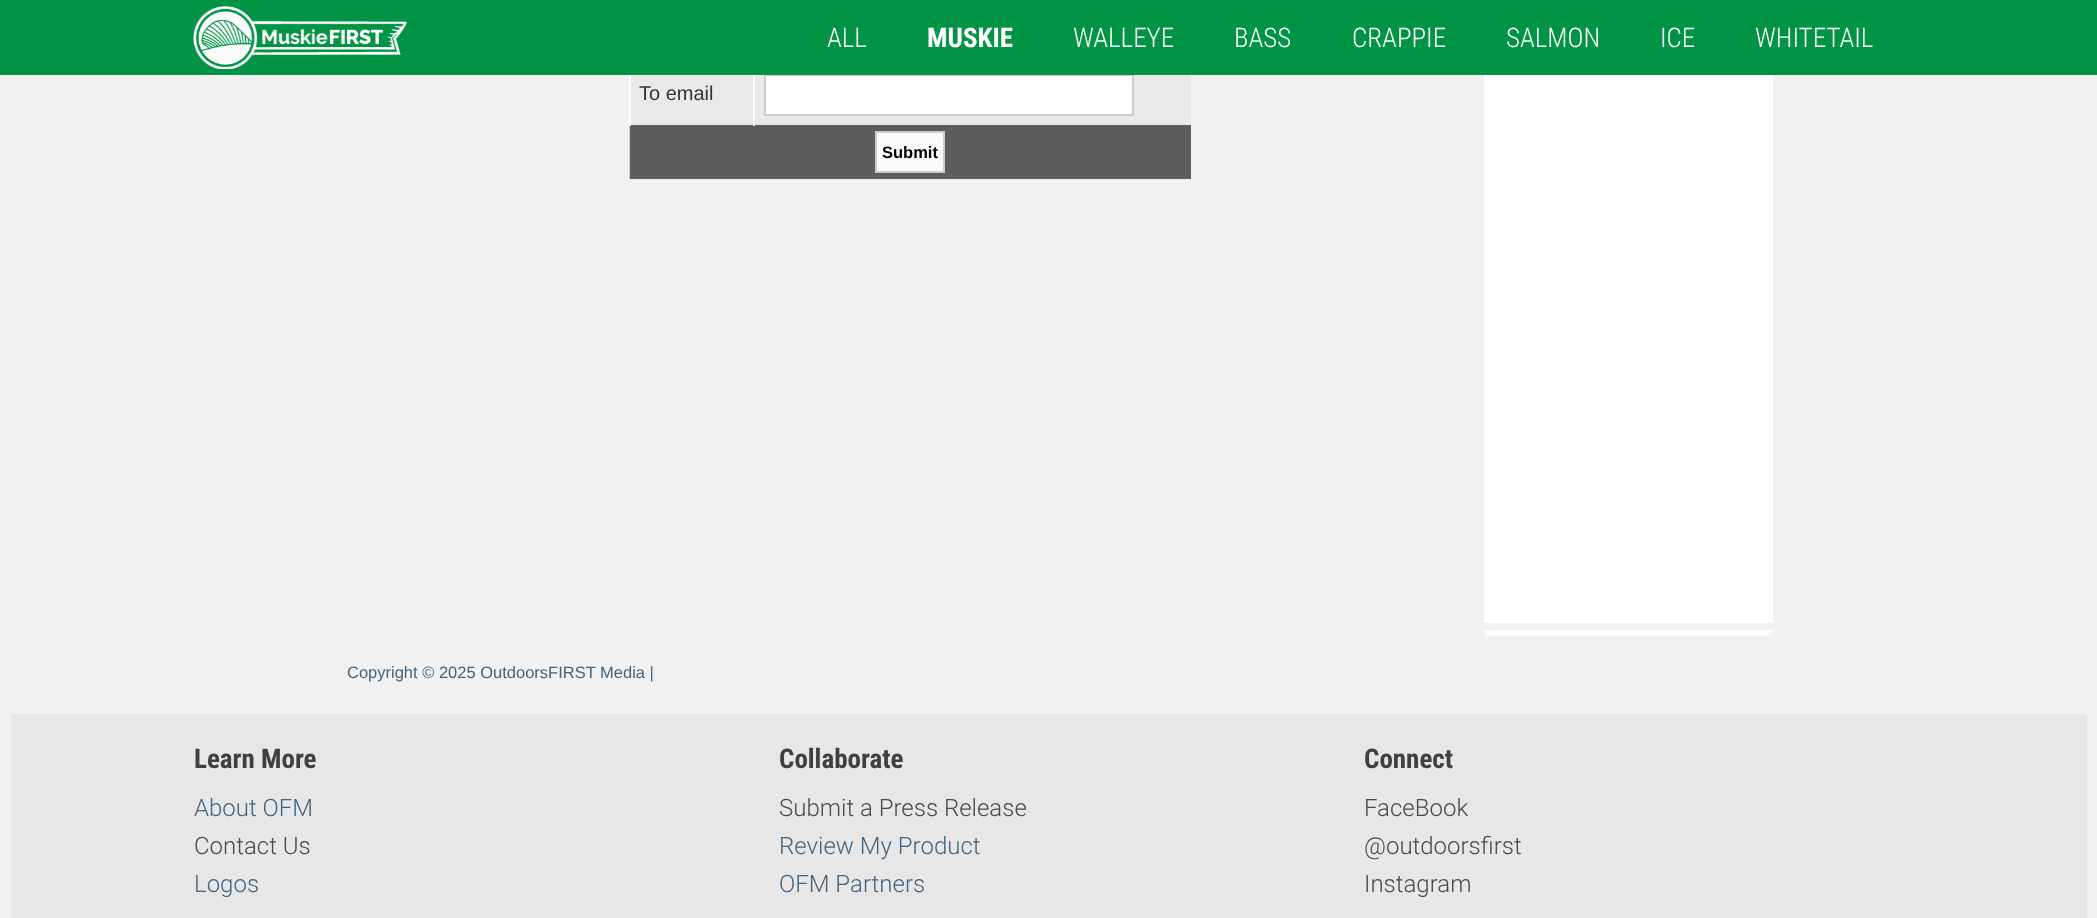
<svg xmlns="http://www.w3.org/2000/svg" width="2097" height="918">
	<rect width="100%" height="100%" fill="#F1F1F1" />
	<rect x="755" y="75" width="436" height="50" fill="#EBE8E8" />
	<rect x="765" y="75" width="368" height="40" fill="#FFFFFF" stroke="#CCCCCC" stroke-width="2" />
	<rect x="0" y="0" width="2097" height="75" fill="#009444" />
	<image x="193" y="6" width="214" height="63" href="assets/img1.png" />
	<text x="827" y="47" font-family="Roboto Condensed" font-size="27" font-weight="300" fill="#FFFFFF">ALL</text>
	<text x="927" y="47" font-family="Roboto Condensed" font-size="27" font-weight="700" fill="#FFFFFF">MUSKIE</text>
	<g font-family="Roboto Condensed" font-size="27" font-weight="300" fill="#FFFFFF">
		<text x="1073" y="47">WALLEYE</text>
		<text x="1234" y="47">BASS</text>
		<text x="1352" y="47">CRAPPIE</text>
		<text x="1506" y="47">SALMON</text>
		<text x="1660" y="47">ICE</text>
		<text x="1755" y="47">WHITETAIL</text>
	</g>
	<rect x="629" y="126" width="1" height="53" fill="#CCCCCC" />
	<rect x="631" y="75" width="122" height="50" fill="#EBE8E8" />
	<rect x="630" y="125" width="561" height="54" fill="#5D5D5D" />
	<rect x="629" y="75" width="2" height="51" fill="#FFFFFF" />
	<text x="639" y="100" font-family="Liberation Sans" font-size="20" fill="#333333">To email</text>
	<rect x="753" y="75" width="2" height="51" fill="#FFFFFF" />
	<rect x="876" y="132" width="68" height="40" fill="#FAFAFA" stroke="#CCCCCC" stroke-width="2" />
	<text x="882" y="158" font-family="Liberation Sans" font-size="16.5" font-weight="700" fill="#000000">Submit</text>
	<rect x="1484" y="75" width="289" height="548" fill="#FFFFFF" />
	<image x="1483" y="630" width="290" height="6" href="assets/img2.png" />
	<text x="347" y="678" font-family="Liberation Sans" font-size="16.5" fill="#43647E">Copyright © 2025 OutdoorsFIRST Media |</text>
	<rect x="11" y="714" width="2076" height="204" fill="#E7E7E7" />
	<text x="194" y="768" font-family="Roboto Condensed" font-size="27" font-weight="700" fill="#404040">Learn More</text>
	<text x="194" y="816" font-family="Roboto" font-size="24" font-weight="300" fill="#43647E">About OFM</text>
	<text x="194" y="854" font-family="Roboto" font-size="24" font-weight="300" fill="#4A4A4A">Contact Us</text>
	<text x="194" y="892" font-family="Roboto" font-size="24" font-weight="300" fill="#43647E">Logos</text>
	<text x="779" y="768" font-family="Roboto Condensed" font-size="27" font-weight="700" fill="#404040">Collaborate</text>
	<text x="779" y="816" font-family="Roboto" font-size="24" font-weight="300" fill="#4A4A4A">Submit a Press Release</text>
	<g font-family="Roboto" font-size="24" font-weight="300" fill="#43647E">
		<text x="779" y="854">Review My Product</text>
		<text x="779" y="892">OFM Partners</text>
	</g>
	<text x="1364" y="768" font-family="Roboto Condensed" font-size="27" font-weight="700" fill="#404040">Connect</text>
	<g font-family="Roboto" font-size="24" font-weight="300" fill="#4A4A4A">
		<text x="1364" y="816">FaceBook</text>
		<text x="1364" y="854">@outdoorsfirst</text>
		<text x="1364" y="892">Instagram</text>
	</g>
</svg>
